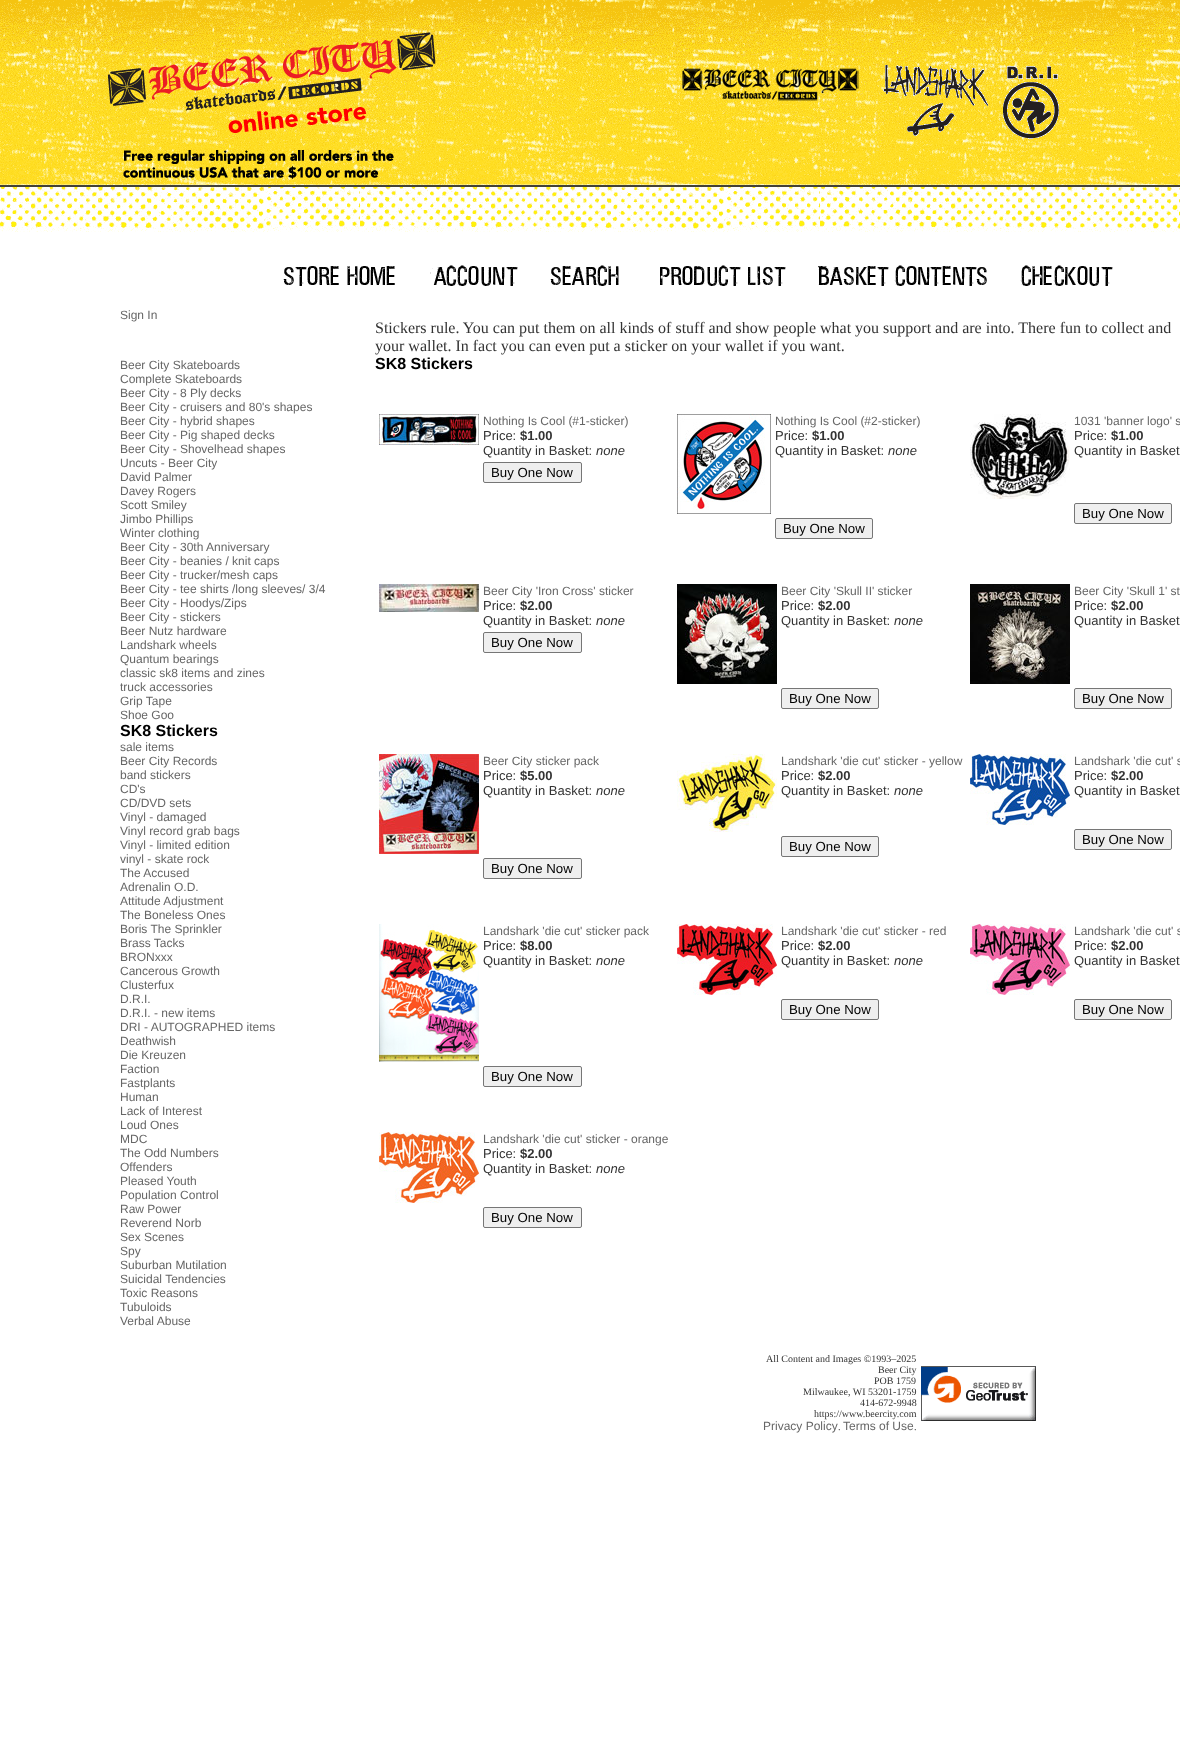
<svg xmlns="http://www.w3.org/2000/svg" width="1180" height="1746">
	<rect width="100%" height="100%" fill="#FFFFFF" />
	<image x="0" y="0" width="1180" height="232" href="assets/img1.png" />
	<image x="110" y="0" width="960" height="232" href="assets/img2.png" />
	<image x="108" y="32" width="328" height="147" href="assets/img3.png" />
	<image x="682" y="68" width="177" height="33" href="assets/img4.png" />
	<image x="883" y="65" width="105" height="71" href="assets/img5.png" />
	<image x="1003" y="66" width="56" height="73" href="assets/img6.png" />
	<image x="283" y="266" width="112" height="20" href="assets/img7.png" />
	<image x="430" y="265" width="88" height="21" href="assets/img8.png" />
	<image x="550" y="265" width="69" height="21" href="assets/img9.png" />
	<image x="660" y="265" width="126" height="21" href="assets/img10.png" />
	<image x="818" y="265" width="169" height="21" href="assets/img11.png" />
	<image x="1020" y="265" width="93" height="21" href="assets/img12.png" />
	<g font-family="Liberation Sans" font-size="12" fill="#666666">
		<text x="120" y="319">Sign In</text>
		<text x="120" y="369">Beer City Skateboards</text>
		<text x="120" y="383">Complete Skateboards</text>
		<text x="120" y="397">Beer City - 8 Ply decks</text>
		<text x="120" y="411">Beer City - cruisers and 80's shapes</text>
		<text x="120" y="425">Beer City - hybrid shapes</text>
		<text x="120" y="439">Beer City - Pig shaped decks</text>
		<text x="120" y="453">Beer City - Shovelhead shapes</text>
		<text x="120" y="467">Uncuts - Beer City</text>
		<text x="120" y="481">David Palmer</text>
		<text x="120" y="495">Davey Rogers</text>
		<text x="120" y="509">Scott Smiley</text>
		<text x="120" y="523">Jimbo Phillips</text>
		<text x="120" y="537">Winter clothing</text>
		<text x="120" y="551">Beer City - 30th Anniversary</text>
		<text x="120" y="565">Beer City - beanies / knit caps</text>
		<text x="120" y="579">Beer City - trucker/mesh caps</text>
		<text x="120" y="593">Beer City - tee shirts /long sleeves/ 3/4</text>
		<text x="120" y="607">Beer City - Hoodys/Zips</text>
		<text x="120" y="621">Beer City - stickers</text>
		<text x="120" y="635">Beer Nutz hardware</text>
		<text x="120" y="649">Landshark wheels</text>
		<text x="120" y="663">Quantum bearings</text>
		<text x="120" y="677">classic sk8 items and zines</text>
		<text x="120" y="691">truck accessories</text>
		<text x="120" y="705">Grip Tape</text>
		<text x="120" y="719">Shoe Goo</text>
	</g>
	<text x="120" y="736" font-family="Liberation Sans" font-size="16" font-weight="700" fill="#000000">SK8 Stickers</text>
	<g font-family="Liberation Sans" font-size="12" fill="#666666">
		<text x="120" y="751">sale items</text>
		<text x="120" y="765">Beer City Records</text>
		<text x="120" y="779">band stickers</text>
		<text x="120" y="793">CD's</text>
		<text x="120" y="807">CD/DVD sets</text>
		<text x="120" y="821">Vinyl - damaged</text>
		<text x="120" y="835">Vinyl record grab bags</text>
		<text x="120" y="849">Vinyl - limited edition</text>
		<text x="120" y="863">vinyl - skate rock</text>
		<text x="120" y="877">The Accused</text>
		<text x="120" y="891">Adrenalin O.D.</text>
		<text x="120" y="905">Attitude Adjustment</text>
		<text x="120" y="919">The Boneless Ones</text>
		<text x="120" y="933">Boris The Sprinkler</text>
		<text x="120" y="947">Brass Tacks</text>
		<text x="120" y="961">BRONxxx</text>
		<text x="120" y="975">Cancerous Growth</text>
		<text x="120" y="989">Clusterfux</text>
		<text x="120" y="1003">D.R.I.</text>
		<text x="120" y="1017">D.R.I. - new items</text>
		<text x="120" y="1031">DRI - AUTOGRAPHED items</text>
		<text x="120" y="1045">Deathwish</text>
		<text x="120" y="1059">Die Kreuzen</text>
		<text x="120" y="1073">Faction</text>
		<text x="120" y="1087">Fastplants</text>
		<text x="120" y="1101">Human</text>
		<text x="120" y="1115">Lack of Interest</text>
		<text x="120" y="1129">Loud Ones</text>
		<text x="120" y="1143">MDC</text>
		<text x="120" y="1157">The Odd Numbers</text>
		<text x="120" y="1171">Offenders</text>
		<text x="120" y="1185">Pleased Youth</text>
		<text x="120" y="1199">Population Control</text>
		<text x="120" y="1213">Raw Power</text>
		<text x="120" y="1227">Reverend Norb</text>
		<text x="120" y="1241">Sex Scenes</text>
		<text x="120" y="1255">Spy</text>
		<text x="120" y="1269">Suburban Mutilation</text>
		<text x="120" y="1283">Suicidal Tendencies</text>
		<text x="120" y="1297">Toxic Reasons</text>
		<text x="120" y="1311">Tubuloids</text>
		<text x="120" y="1325">Verbal Abuse</text>
	</g>
	<g font-family="Liberation Serif" font-size="16" fill="#333333">
		<text x="375" y="333">Stickers rule. You can put them on all kinds of stuff and show people what you support and are into. There fun to collect and</text>
		<text x="375" y="351">your wallet. In fact you can even put a sticker on your wallet if you want.</text>
	</g>
	<text x="375" y="369" font-family="Liberation Sans" font-size="16" font-weight="700" fill="#000000">SK8 Stickers</text>
	<image x="379" y="414" width="100" height="31" href="assets/img13.png" />
	<text x="483" y="425" font-family="Liberation Sans" font-size="12" fill="#666666">Nothing Is Cool (#1-sticker)</text>
	<text x="483" y="440" font-family="Liberation Sans" font-size="13" fill="#333333">Price:</text>
	<text x="520" y="440" font-family="Liberation Sans" font-size="13" font-weight="700" fill="#333333">$1.00</text>
	<text x="483" y="455" font-family="Liberation Sans" font-size="13" fill="#333333">Quantity in Basket:</text>
	<text x="596" y="455" font-family="Liberation Sans" font-size="13" font-style="italic" fill="#333333">none</text>
	<rect x="483.5" y="462.5" width="98" height="20" rx="1.5" fill="#EFEFEF" stroke="#767676" />
	<text x="491" y="477" font-family="Liberation Sans" font-size="13.25" fill="#000000">Buy One Now</text>
	<image x="677" y="414" width="94" height="100" href="assets/img14.png" />
	<text x="775" y="425" font-family="Liberation Sans" font-size="12" fill="#666666">Nothing Is Cool (#2-sticker)</text>
	<text x="775" y="440" font-family="Liberation Sans" font-size="13" fill="#333333">Price:</text>
	<text x="812" y="440" font-family="Liberation Sans" font-size="13" font-weight="700" fill="#333333">$1.00</text>
	<text x="775" y="455" font-family="Liberation Sans" font-size="13" fill="#333333">Quantity in Basket:</text>
	<text x="888" y="455" font-family="Liberation Sans" font-size="13" font-style="italic" fill="#333333">none</text>
	<rect x="775.5" y="518.5" width="97" height="20" rx="1.5" fill="#EFEFEF" stroke="#767676" />
	<text x="783" y="533" font-family="Liberation Sans" font-size="13.25" fill="#000000">Buy One Now</text>
	<image x="970" y="414" width="100" height="85" href="assets/img15.png" />
	<text x="1074" y="425" font-family="Liberation Sans" font-size="12" fill="#666666">1031 'banner logo' s</text>
	<text x="1074" y="440" font-family="Liberation Sans" font-size="13" fill="#333333">Price:</text>
	<text x="1111" y="440" font-family="Liberation Sans" font-size="13" font-weight="700" fill="#333333">$1.00</text>
	<text x="1074" y="455" font-family="Liberation Sans" font-size="13" fill="#333333">Quantity in Basket</text>
	<rect x="1074.5" y="503.5" width="97" height="20" rx="1.5" fill="#EFEFEF" stroke="#767676" />
	<text x="1082" y="518" font-family="Liberation Sans" font-size="13.25" fill="#000000">Buy One Now</text>
	<image x="379" y="584" width="100" height="28" href="assets/img16.png" />
	<text x="483" y="595" font-family="Liberation Sans" font-size="12" fill="#666666">Beer City 'Iron Cross' sticker</text>
	<text x="483" y="610" font-family="Liberation Sans" font-size="13" fill="#333333">Price:</text>
	<text x="520" y="610" font-family="Liberation Sans" font-size="13" font-weight="700" fill="#333333">$2.00</text>
	<text x="483" y="625" font-family="Liberation Sans" font-size="13" fill="#333333">Quantity in Basket:</text>
	<text x="596" y="625" font-family="Liberation Sans" font-size="13" font-style="italic" fill="#333333">none</text>
	<rect x="483.5" y="632.5" width="98" height="20" rx="1.5" fill="#EFEFEF" stroke="#767676" />
	<text x="491" y="647" font-family="Liberation Sans" font-size="13.25" fill="#000000">Buy One Now</text>
	<image x="677" y="584" width="100" height="100" href="assets/img17.png" />
	<text x="781" y="595" font-family="Liberation Sans" font-size="12" fill="#666666">Beer City 'Skull II' sticker</text>
	<text x="781" y="610" font-family="Liberation Sans" font-size="13" fill="#333333">Price:</text>
	<text x="818" y="610" font-family="Liberation Sans" font-size="13" font-weight="700" fill="#333333">$2.00</text>
	<text x="781" y="625" font-family="Liberation Sans" font-size="13" fill="#333333">Quantity in Basket:</text>
	<text x="894" y="625" font-family="Liberation Sans" font-size="13" font-style="italic" fill="#333333">none</text>
	<rect x="781.5" y="688.5" width="97" height="20" rx="1.5" fill="#EFEFEF" stroke="#767676" />
	<text x="789" y="703" font-family="Liberation Sans" font-size="13.25" fill="#000000">Buy One Now</text>
	<image x="970" y="584" width="100" height="100" href="assets/img18.png" />
	<text x="1074" y="595" font-family="Liberation Sans" font-size="12" fill="#666666">Beer City 'Skull 1' st</text>
	<text x="1074" y="610" font-family="Liberation Sans" font-size="13" fill="#333333">Price:</text>
	<text x="1111" y="610" font-family="Liberation Sans" font-size="13" font-weight="700" fill="#333333">$2.00</text>
	<text x="1074" y="625" font-family="Liberation Sans" font-size="13" fill="#333333">Quantity in Basket</text>
	<rect x="1074.5" y="688.5" width="97" height="20" rx="1.5" fill="#EFEFEF" stroke="#767676" />
	<text x="1082" y="703" font-family="Liberation Sans" font-size="13.25" fill="#000000">Buy One Now</text>
	<image x="379" y="754" width="100" height="100" href="assets/img19.png" />
	<text x="483" y="765" font-family="Liberation Sans" font-size="12" fill="#666666">Beer City sticker pack</text>
	<text x="483" y="780" font-family="Liberation Sans" font-size="13" fill="#333333">Price:</text>
	<text x="520" y="780" font-family="Liberation Sans" font-size="13" font-weight="700" fill="#333333">$5.00</text>
	<text x="483" y="795" font-family="Liberation Sans" font-size="13" fill="#333333">Quantity in Basket:</text>
	<text x="596" y="795" font-family="Liberation Sans" font-size="13" font-style="italic" fill="#333333">none</text>
	<rect x="483.5" y="858.5" width="98" height="20" rx="1.5" fill="#EFEFEF" stroke="#767676" />
	<text x="491" y="873" font-family="Liberation Sans" font-size="13.25" fill="#000000">Buy One Now</text>
	<image x="677" y="754" width="100" height="78" href="assets/img20.png" />
	<text x="781" y="765" font-family="Liberation Sans" font-size="12" fill="#666666">Landshark 'die cut' sticker - yellow</text>
	<text x="781" y="780" font-family="Liberation Sans" font-size="13" fill="#333333">Price:</text>
	<text x="818" y="780" font-family="Liberation Sans" font-size="13" font-weight="700" fill="#333333">$2.00</text>
	<text x="781" y="795" font-family="Liberation Sans" font-size="13" fill="#333333">Quantity in Basket:</text>
	<text x="894" y="795" font-family="Liberation Sans" font-size="13" font-style="italic" fill="#333333">none</text>
	<rect x="781.5" y="836.5" width="97" height="20" rx="1.5" fill="#EFEFEF" stroke="#767676" />
	<text x="789" y="851" font-family="Liberation Sans" font-size="13.25" fill="#000000">Buy One Now</text>
	<image x="970" y="754" width="100" height="71" href="assets/img21.png" />
	<text x="1074" y="765" font-family="Liberation Sans" font-size="12" fill="#666666">Landshark 'die cut' s</text>
	<text x="1074" y="780" font-family="Liberation Sans" font-size="13" fill="#333333">Price:</text>
	<text x="1111" y="780" font-family="Liberation Sans" font-size="13" font-weight="700" fill="#333333">$2.00</text>
	<text x="1074" y="795" font-family="Liberation Sans" font-size="13" fill="#333333">Quantity in Basket</text>
	<rect x="1074.5" y="829.5" width="97" height="20" rx="1.5" fill="#EFEFEF" stroke="#767676" />
	<text x="1082" y="844" font-family="Liberation Sans" font-size="13.25" fill="#000000">Buy One Now</text>
	<image x="379" y="924" width="100" height="138" href="assets/img22.png" />
	<text x="483" y="935" font-family="Liberation Sans" font-size="12" fill="#666666">Landshark 'die cut' sticker pack</text>
	<text x="483" y="950" font-family="Liberation Sans" font-size="13" fill="#333333">Price:</text>
	<text x="520" y="950" font-family="Liberation Sans" font-size="13" font-weight="700" fill="#333333">$8.00</text>
	<text x="483" y="965" font-family="Liberation Sans" font-size="13" fill="#333333">Quantity in Basket:</text>
	<text x="596" y="965" font-family="Liberation Sans" font-size="13" font-style="italic" fill="#333333">none</text>
	<rect x="483.5" y="1066.5" width="98" height="20" rx="1.5" fill="#EFEFEF" stroke="#767676" />
	<text x="491" y="1081" font-family="Liberation Sans" font-size="13.25" fill="#000000">Buy One Now</text>
	<image x="677" y="924" width="100" height="71" href="assets/img23.png" />
	<text x="781" y="935" font-family="Liberation Sans" font-size="12" fill="#666666">Landshark 'die cut' sticker - red</text>
	<text x="781" y="950" font-family="Liberation Sans" font-size="13" fill="#333333">Price:</text>
	<text x="818" y="950" font-family="Liberation Sans" font-size="13" font-weight="700" fill="#333333">$2.00</text>
	<text x="781" y="965" font-family="Liberation Sans" font-size="13" fill="#333333">Quantity in Basket:</text>
	<text x="894" y="965" font-family="Liberation Sans" font-size="13" font-style="italic" fill="#333333">none</text>
	<rect x="781.5" y="999.5" width="97" height="20" rx="1.5" fill="#EFEFEF" stroke="#767676" />
	<text x="789" y="1014" font-family="Liberation Sans" font-size="13.25" fill="#000000">Buy One Now</text>
	<image x="970" y="924" width="100" height="71" href="assets/img24.png" />
	<text x="1074" y="935" font-family="Liberation Sans" font-size="12" fill="#666666">Landshark 'die cut' s</text>
	<text x="1074" y="950" font-family="Liberation Sans" font-size="13" fill="#333333">Price:</text>
	<text x="1111" y="950" font-family="Liberation Sans" font-size="13" font-weight="700" fill="#333333">$2.00</text>
	<text x="1074" y="965" font-family="Liberation Sans" font-size="13" fill="#333333">Quantity in Basket</text>
	<rect x="1074.5" y="999.5" width="97" height="20" rx="1.5" fill="#EFEFEF" stroke="#767676" />
	<text x="1082" y="1014" font-family="Liberation Sans" font-size="13.25" fill="#000000">Buy One Now</text>
	<image x="379" y="1132" width="100" height="71" href="assets/img25.png" />
	<text x="483" y="1143" font-family="Liberation Sans" font-size="12" fill="#666666">Landshark 'die cut' sticker - orange</text>
	<text x="483" y="1158" font-family="Liberation Sans" font-size="13" fill="#333333">Price:</text>
	<text x="520" y="1158" font-family="Liberation Sans" font-size="13" font-weight="700" fill="#333333">$2.00</text>
	<text x="483" y="1173" font-family="Liberation Sans" font-size="13" fill="#333333">Quantity in Basket:</text>
	<text x="596" y="1173" font-family="Liberation Sans" font-size="13" font-style="italic" fill="#333333">none</text>
	<rect x="483.5" y="1207.5" width="98" height="20" rx="1.5" fill="#EFEFEF" stroke="#767676" />
	<text x="491" y="1222" font-family="Liberation Sans" font-size="13.25" fill="#000000">Buy One Now</text>
	<g font-family="Liberation Serif" font-size="10" fill="#333333">
		<text x="766" y="1362">All Content and Images ©1993–2025</text>
		<text x="878" y="1373">Beer City</text>
		<text x="874" y="1384">POB 1759</text>
		<text x="803" y="1395">Milwaukee, WI 53201-1759</text>
		<text x="860" y="1406">414-672-9948</text>
		<text x="814" y="1417">https://www.beercity.com</text>
	</g>
	<text x="763" y="1430" font-family="Liberation Sans" font-size="12" fill="#666666">Privacy Policy</text>
	<text x="838" y="1430" font-family="Liberation Serif" font-size="10" fill="#333333">.</text>
	<text x="843" y="1430" font-family="Liberation Sans" font-size="12" fill="#666666">Terms of Use</text>
	<text x="914" y="1430" font-family="Liberation Serif" font-size="10" fill="#333333">.</text>
	<image x="921" y="1366" width="115" height="55" href="assets/img26.png" />
</svg>
